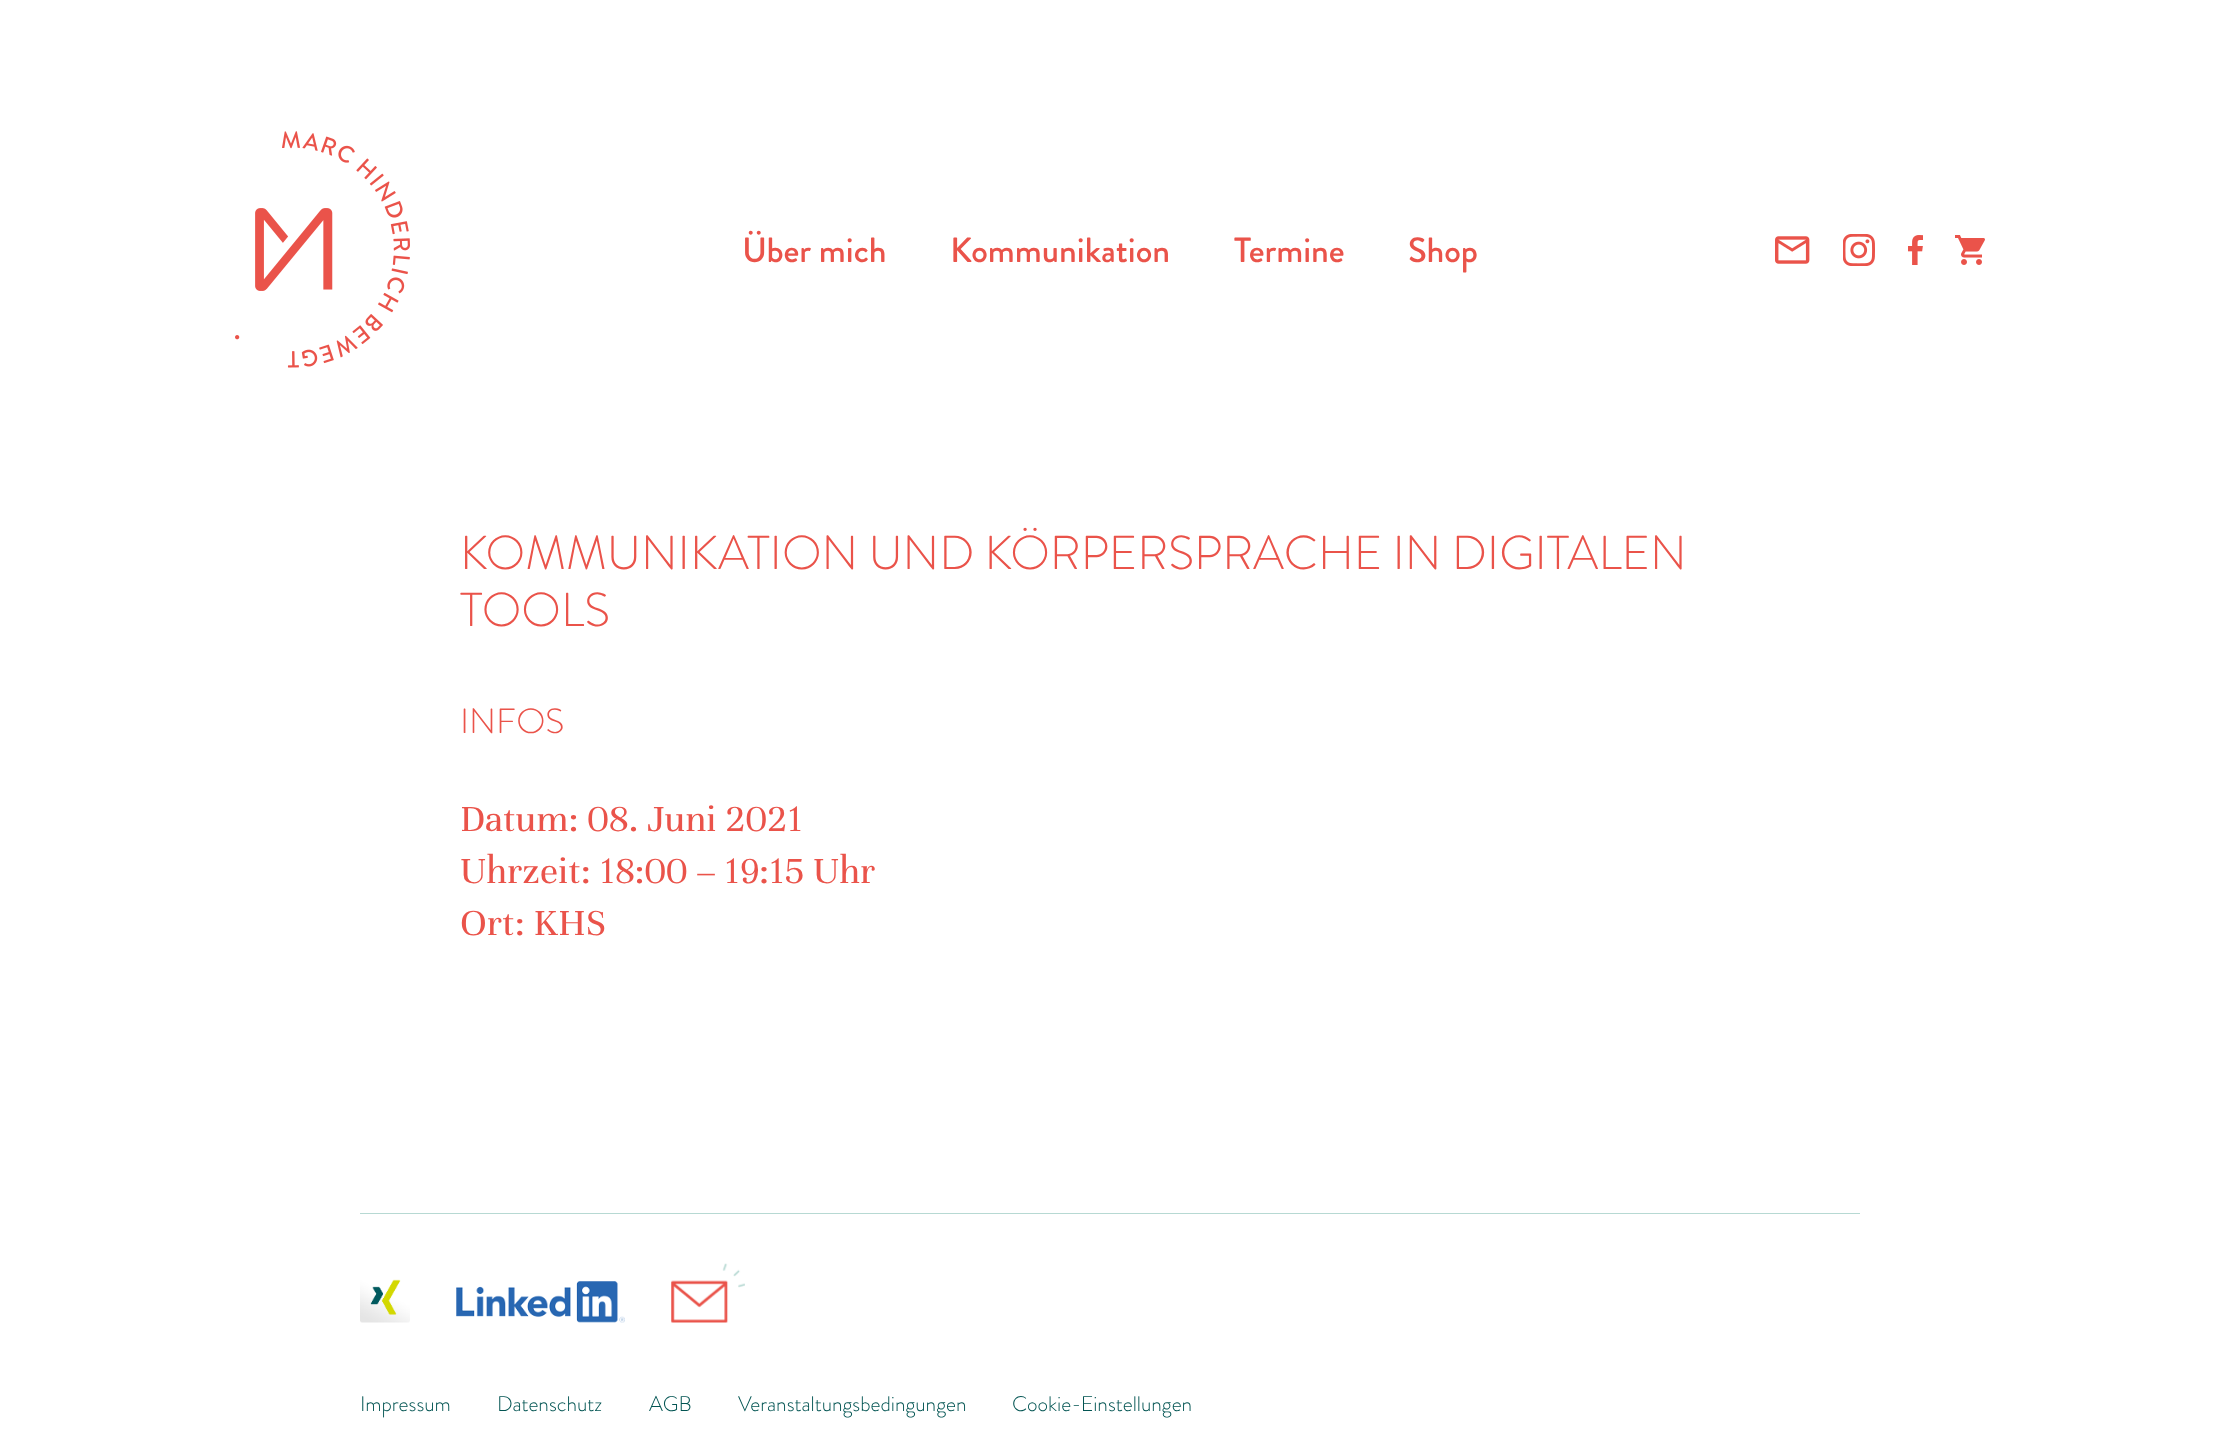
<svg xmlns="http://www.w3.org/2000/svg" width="2220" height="1454">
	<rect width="100%" height="100%" fill="#FFFFFF" />
	<image x="235" y="131" width="175" height="237" href="assets/img1.png" />
	<g font-family="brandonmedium" font-size="35" font-weight="500" fill="#EA534A">
		<text x="742" y="262">Über mich</text>
		<text x="950" y="262">Kommunikation</text>
		<text x="1234" y="262">Termine</text>
		<text x="1408" y="262">Shop</text>
	</g>
	<image x="1775" y="236" width="35" height="28" href="assets/img2.png" />
	<image x="1843" y="234" width="32" height="32" href="assets/img3.png" />
	<image x="1908" y="235" width="15" height="30" href="assets/img4.png" />
	<image x="1955" y="235" width="30" height="30" href="assets/img5.png" />
	<g font-family="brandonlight" font-size="47.5" font-weight="300" fill="#EA534A">
		<text x="460" y="569">KOMMUNIKATION UND KÖRPERSPRACHE IN DIGITALEN</text>
		<text x="460" y="626">TOOLS</text>
	</g>
	<text x="460" y="733" font-family="brandonlight" font-size="35" font-weight="300" fill="#EA534A">INFOS</text>
	<g font-family="Unna" font-size="40" fill="#EA534A">
		<text x="460" y="831">Datum: 08. Juni 2021</text>
		<text x="460" y="883">Uhrzeit: 18:00 – 19:15 Uhr</text>
		<text x="460" y="935">Ort: KHS</text>
	</g>
	<rect x="360" y="1213" width="1500" height="1" fill="#B7D9D3" />
	<image x="360" y="1279" width="50" height="44" href="assets/img6.png" />
	<image x="456" y="1281" width="169" height="42" href="assets/img7.png" />
	<image x="671" y="1263" width="74" height="60" href="assets/img8.png" />
	<g font-family="brandonlight" font-size="21.25" font-weight="300" fill="#025452">
		<text x="360" y="1411">Impressum</text>
		<text x="497" y="1411">Datenschutz</text>
		<text x="649" y="1411">AGB</text>
		<text x="738" y="1411">Veranstaltungsbedingungen</text>
		<text x="1012" y="1411">Cookie-Einstellungen</text>
	</g>
</svg>
